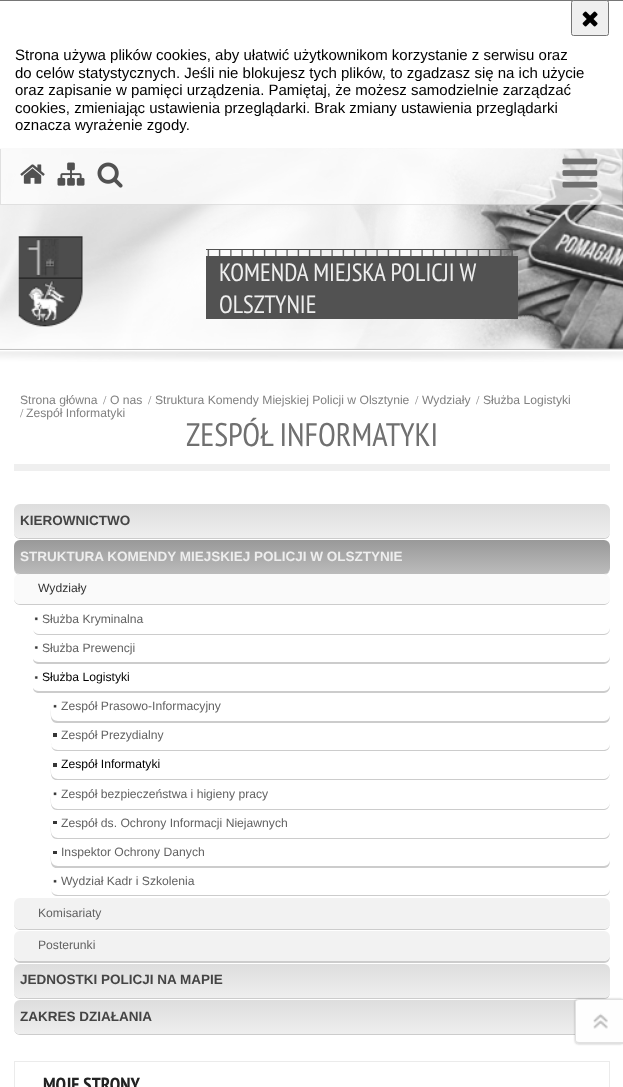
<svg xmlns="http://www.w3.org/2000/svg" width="623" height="1087">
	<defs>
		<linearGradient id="g1" gradientUnits="userSpaceOnUse" x1="312" y1="538" x2="312" y2="504"><stop offset="0" stop-color="#EEEEEE" /><stop offset="1" stop-color="#DDDDDD" /></linearGradient>
		<linearGradient id="g2" gradientUnits="userSpaceOnUse" x1="312" y1="574" x2="312" y2="540"><stop offset="0" stop-color="#BBBBBB" /><stop offset="1" stop-color="#999999" /></linearGradient>
		<linearGradient id="g3" gradientUnits="userSpaceOnUse" x1="312" y1="998" x2="312" y2="964"><stop offset="0" stop-color="#EEEEEE" /><stop offset="1" stop-color="#DDDDDD" /></linearGradient>
		<linearGradient id="g4" gradientUnits="userSpaceOnUse" x1="312" y1="1034" x2="312" y2="1000"><stop offset="0" stop-color="#EEEEEE" /><stop offset="1" stop-color="#DDDDDD" /></linearGradient>
	</defs>
	<rect width="100%" height="100%" fill="#FFFFFF" />
	<rect x="0" y="0" width="623" height="1" fill="#767676" />
	<rect x="571.5" y="0.5" width="37" height="35" rx="2" fill="#EFEFEF" stroke="#767676" />
	<image x="582" y="11" width="16" height="16" href="assets/img1.png" />
	<g font-family="Liberation Sans" font-size="15" fill="#000000">
		<text x="15" y="60">Strona używa plików cookies, aby ułatwić użytkownikom korzystanie z serwisu oraz</text>
		<text x="15" y="78">do celów statystycznych. Jeśli nie blokujesz tych plików, to zgadzasz się na ich użycie</text>
		<text x="15" y="95">oraz zapisanie w pamięci urządzenia. Pamiętaj, że możesz samodzielnie zarządzać</text>
		<text x="15" y="113">cookies, zmieniając ustawienia przeglądarki. Brak zmiany ustawienia przeglądarki</text>
		<text x="15" y="130">oznacza wyrażenie zgody.</text>
	</g>
	<image x="0" y="148" width="623" height="201" href="assets/img2.png" />
	<image x="0" y="351" width="623" height="11" href="assets/img3.png" />
	<image x="0" y="148" width="623" height="201" href="assets/img4.png" />
	<rect x="0" y="349" width="623" height="1" fill="#C1C1C1" />
	<rect x="0" y="149" width="623" height="56" fill="#FFFFFF" fill-opacity="0.7" />
	<path d="M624 149V205L622 204V149Z" fill="#000000" fill-opacity="0.1" />
	<path d="M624 205H0L1 204H622Z" fill="#000000" fill-opacity="0.1" />
	<path d="M0 205V149H1V204Z" fill="#000000" fill-opacity="0.1" />
	<image x="20" y="164" width="25" height="20" href="assets/img5.png" />
	<image x="57" y="162" width="28" height="24" href="assets/img6.png" />
	<image x="97" y="162" width="26" height="26" href="assets/img7.png" />
	<image x="562" y="158" width="36" height="30" href="assets/img8.png" />
	<image x="207" y="250" width="306" height="6" href="assets/img9.png" />
	<rect x="206" y="249" width="312" height="1" fill="#525252" />
	<image x="18" y="236" width="65" height="91" href="assets/img10.png" />
	<rect x="206" y="256" width="312" height="63" fill="#525252" />
	<g font-family="PT Sans Narrow" font-size="25" fill="#EEEEEE">
		<text x="219" y="281">KOMENDA MIEJSKA POLICJI W</text>
		<text x="219" y="313">OLSZTYNIE</text>
	</g>
	<text x="20" y="404" font-family="Liberation Sans" font-size="12.15" fill="#818181">Strona główna</text>
	<text x="103" y="404" font-family="Liberation Serif" font-size="12.15" fill="#818181">/</text>
	<text x="110" y="404" font-family="Liberation Sans" font-size="12.15" fill="#818181">O nas</text>
	<text x="148" y="404" font-family="Liberation Serif" font-size="12.15" fill="#818181">/</text>
	<text x="155" y="404" font-family="Liberation Sans" font-size="12.15" fill="#818181">Struktura Komendy Miejskiej Policji w Olsztynie</text>
	<text x="415" y="404" font-family="Liberation Serif" font-size="12.15" fill="#818181">/</text>
	<text x="422" y="404" font-family="Liberation Sans" font-size="12.15" fill="#818181">Wydziały</text>
	<text x="476" y="404" font-family="Liberation Serif" font-size="12.15" fill="#818181">/</text>
	<text x="483" y="404" font-family="Liberation Sans" font-size="12.15" fill="#818181">Służba Logistyki</text>
	<text x="20" y="417" font-family="Liberation Serif" font-size="12.15" fill="#818181">/</text>
	<text x="26" y="417" font-family="Liberation Sans" font-size="12.15" fill="#818181">Zespół Informatyki</text>
	<rect x="14" y="464" width="596" height="7" fill="#EFEFEF" />
	<text x="186" y="446" font-family="PT Sans Narrow" font-size="32.5" fill="#707070">ZESPÓŁ INFORMATYKI</text>
	<path d="M14 533C14 536 17 539 20 539H604C609 539 610 535 610 531C610 535 607 538 604 538H20C17 538 15 536 14 533Z" fill="#CCCCCC" />
	<rect x="14" y="504" width="596" height="34" rx="6" fill="url(#g1)" />
	<text x="20" y="525" font-family="Liberation Sans" font-size="13.5" font-weight="700" fill="#444444">KIEROWNICTWO</text>
	<path d="M14 569C14 572 17 575 20 575H604C608 575 610 571 610 568C610 571 607 574 604 574H20C17 574 15 572 14 569Z" fill="#CCCCCC" />
	<rect x="14" y="540" width="596" height="34" rx="6" fill="url(#g2)" />
	<text x="20" y="561" font-family="Liberation Sans" font-size="13.5" font-weight="700" fill="#EEEEEE">STRUKTURA KOMENDY MIEJSKIEJ POLICJI W OLSZTYNIE</text>
	<path d="M14 599C14 602 17 605 20 605H604C608 605 610 601 610 598C610 601 607 604 604 604H20C17 604 15 602 14 599Z" fill="#CCCCCC" />
	<rect x="14" y="574" width="596" height="30" rx="6" fill="#FAFAFA" />
	<text x="38" y="592" font-family="Liberation Sans" font-size="12.15" fill="#333333">Wydziały</text>
	<path d="M33 630C34 633 36 635 39 635H604C607 635 610 632 610 629V628C610 631 607 634 604 634H39C36 634 34 632 33 630Z" fill="#CCCCCC" />
	<image x="34" y="617" width="4" height="4" href="assets/img11.png" />
	<text x="42" y="623" font-family="Liberation Sans" font-size="12.15" fill="#626262">Służba Kryminalna</text>
	<path d="M33 659C33 662 36 664 39 664H604C607 664 610 661 610 658V656C610 660 607 662 604 662H39C36 662 34 661 33 659Z" fill="#CCCCCC" />
	<image x="34" y="646" width="4" height="3" href="assets/img12.png" />
	<text x="42" y="652" font-family="Liberation Sans" font-size="12.15" fill="#626262">Służba Prewencji</text>
	<path d="M33 688C33 691 36 693 39 693H604C607 693 610 690 610 687V685C610 688 607 691 604 691H39C36 691 34 690 33 688Z" fill="#CCCCCC" />
	<image x="34" y="676" width="4" height="3" href="assets/img13.png" />
	<text x="42" y="681" font-family="Liberation Sans" font-size="12.15" fill="#000000">Służba Logistyki</text>
	<path d="M51 697V708C51 713 49 723 57 723H604C609 723 610 719 610 715C610 718 607 721 604 721H58C54 721 51 718 51 715Z" fill="#CCCCCC" />
	<image x="53" y="704" width="4" height="4" href="assets/img14.png" />
	<text x="61" y="710" font-family="Liberation Sans" font-size="12.15" fill="#626262">Zespół Prasowo-Informacyjny</text>
	<path d="M51 727V737C51 742 50 751 57 751H605C609 750 610 747 610 744C610 747 607 750 604 750H58C54 750 51 747 51 744Z" fill="#CCCCCC" />
	<rect x="53" y="733" width="4" height="4" fill="#363636" />
	<text x="61" y="739" font-family="Liberation Sans" font-size="12.15" fill="#626262">Zespół Prezydialny</text>
	<path d="M51 755V766C51 770 49 780 57 780H604C608 780 610 776 610 772C610 776 607 779 604 779H58C54 779 51 776 51 772Z" fill="#CCCCCC" />
	<rect x="53" y="763" width="4" height="4" fill="#363636" />
	<text x="61" y="768" font-family="Liberation Sans" font-size="12.15" fill="#000000">Zespół Informatyki</text>
	<path d="M51 784V795C51 800 49 810 57 810H604C608 810 610 806 610 802C610 806 607 809 604 809H58C54 809 51 806 51 802Z" fill="#CCCCCC" />
	<image x="53" y="792" width="4" height="4" href="assets/img15.png" />
	<text x="61" y="798" font-family="Liberation Sans" font-size="12.15" fill="#626262">Zespół bezpieczeństwa i higieny pracy</text>
	<path d="M51 814V824C51 829 49 839 57 839H604C609 839 610 835 610 831C610 835 607 838 604 838H58C54 838 51 835 51 831Z" fill="#CCCCCC" />
	<rect x="53" y="821" width="4" height="3" fill="#363636" />
	<text x="61" y="827" font-family="Liberation Sans" font-size="12.15" fill="#626262">Zespół ds. Ochrony Informacji Niejawnych</text>
	<path d="M51 843V854C51 858 49 868 57 868H604C609 868 610 864 610 860C610 863 607 866 604 866H58C54 866 51 863 51 860Z" fill="#CCCCCC" />
	<rect x="53" y="851" width="4" height="3" fill="#363636" />
	<text x="61" y="856" font-family="Liberation Sans" font-size="12.15" fill="#626262">Inspektor Ochrony Danych</text>
	<path d="M51 872V882C51 887 50 896 57 896H605C609 895 610 892 610 889C610 892 607 895 604 895H58C54 895 51 892 51 889Z" fill="#CCCCCC" />
	<image x="53" y="879" width="4" height="4" href="assets/img14.png" />
	<text x="61" y="885" font-family="Liberation Sans" font-size="12.15" fill="#626262">Wydział Kadr i Szkolenia</text>
	<path d="M14 924C14 927 17 930 20 930H604C608 930 610 926 610 922C610 926 607 929 604 929H20C17 929 15 927 14 924Z" fill="#CCCCCC" />
	<rect x="14" y="898" width="596" height="31" rx="6" fill="#F2F2F2" />
	<text x="38" y="917" font-family="Liberation Sans" font-size="12.15" fill="#626262">Komisariaty</text>
	<path d="M14 957C14 960 17 963 20 963H604C609 963 610 959 610 955C610 958 607 961 604 961H20C17 961 15 959 14 957Z" fill="#CCCCCC" />
	<rect x="14" y="931" width="596" height="30" rx="6" fill="#F2F2F2" />
	<text x="38" y="949" font-family="Liberation Sans" font-size="12.15" fill="#626262">Posterunki</text>
	<path d="M14 993C14 996 17 999 20 999H604C609 999 610 995 610 991C610 995 607 998 604 998H20C17 998 15 996 14 993Z" fill="#CCCCCC" />
	<rect x="14" y="964" width="596" height="34" rx="6" fill="url(#g3)" />
	<text x="20" y="984" font-family="Liberation Sans" font-size="13.5" font-weight="700" fill="#444444">JEDNOSTKI POLICJI NA MAPIE</text>
	<path d="M14 1029C14 1032 17 1035 20 1035H604C608 1035 610 1031 610 1028C610 1031 607 1034 604 1034H20C17 1034 15 1032 14 1029Z" fill="#CCCCCC" />
	<rect x="14" y="1000" width="596" height="34" rx="6" fill="url(#g4)" />
	<text x="20" y="1021" font-family="Liberation Sans" font-size="13.5" font-weight="700" fill="#444444">ZAKRES DZIAŁANIA</text>
	<rect x="14.5" y="1061.5" width="595" height="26" fill="none" stroke="#EBEBEB" />
	<text x="43" y="1091" font-family="PT Sans Narrow" font-size="19" font-weight="700" fill="#222222">MOJE STRONY</text>
	<rect x="575" y="999" width="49" height="45" rx="4" fill="#000000" fill-opacity="0.25" filter="blur(1px)" />
	<path d="M579 999H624V1044H579C577 1044 575 1042 575 1040V1003C575 1001 577 999 579 999Z" fill="#FEFEFE" />
	<path d="M579 999H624V1044H579C577 1044 575 1042 575 1040V1002C575 1000 577 999 579 999ZM579 1000H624V1042H579C577 1042 576 1041 576 1040V1002C576 1001 577 1000 579 1000Z" fill="#E1E1E1" fill-rule="evenodd" />
	<image x="593" y="1013" width="15" height="16" href="assets/img16.png" />
</svg>
